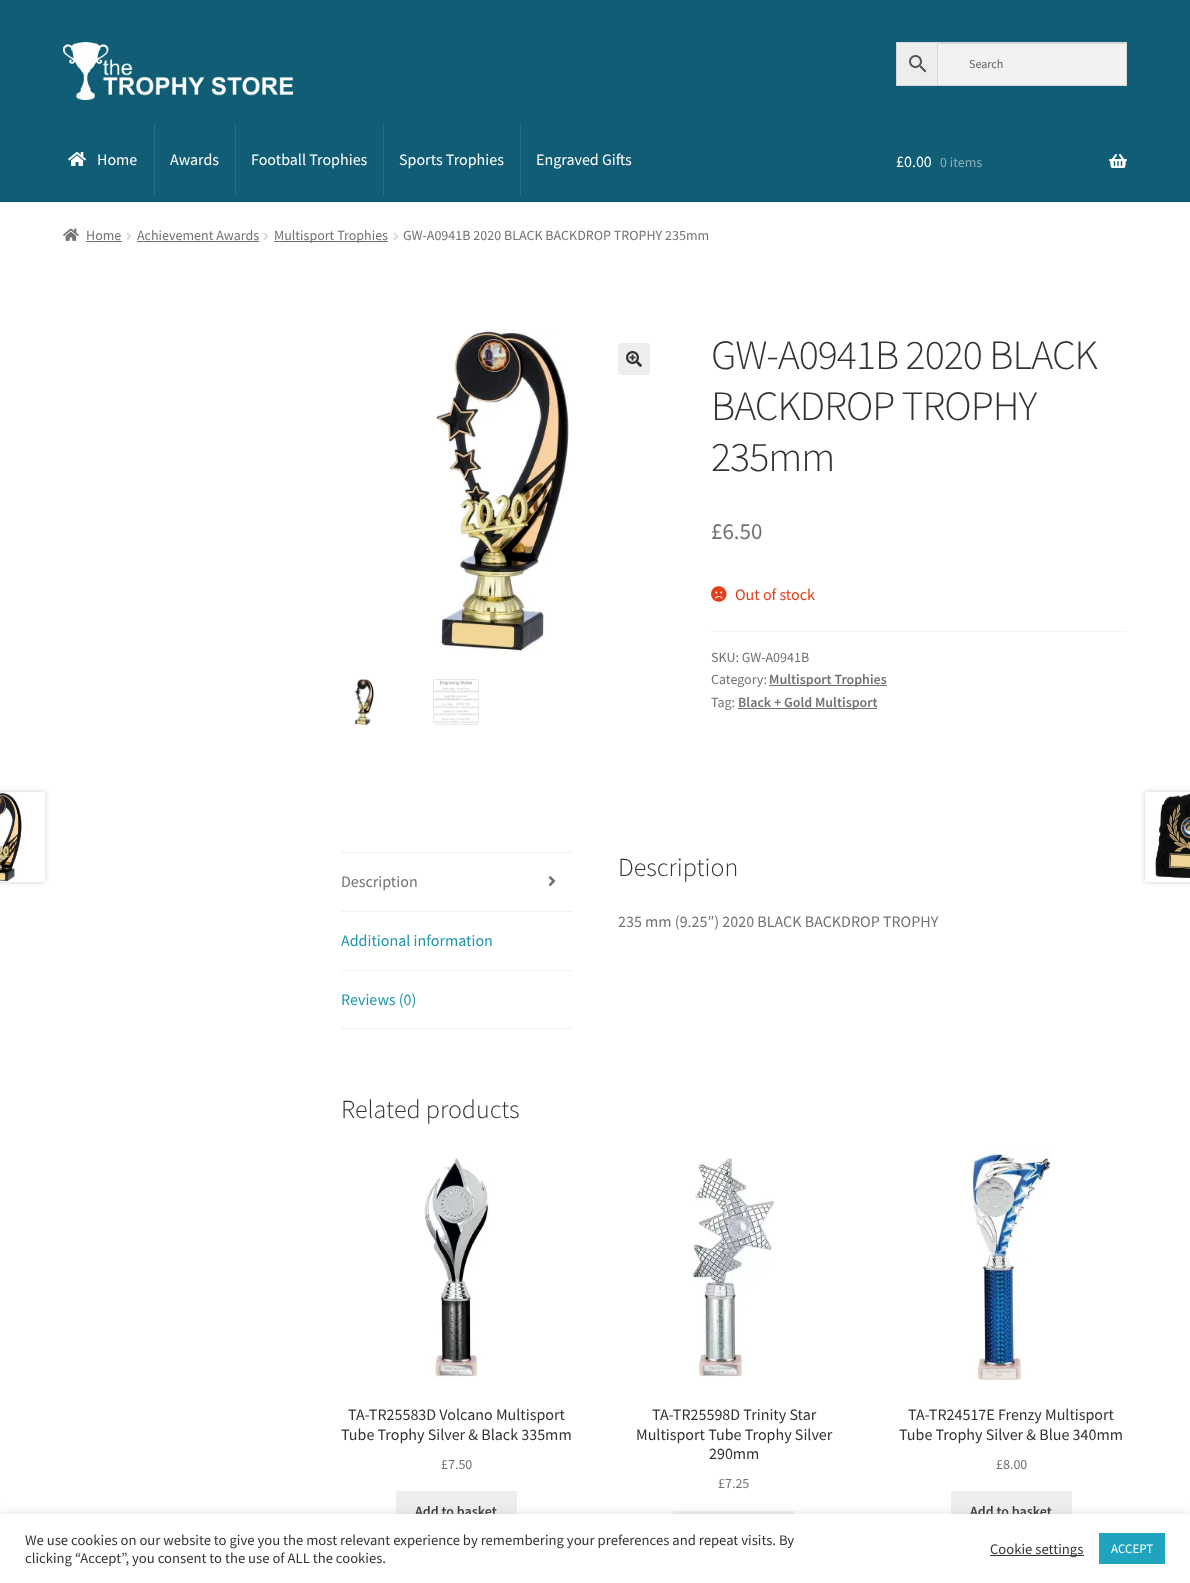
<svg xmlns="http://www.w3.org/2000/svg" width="1190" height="1583">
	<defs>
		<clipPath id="clip1"><path d="M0 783H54V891H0ZM-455 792H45V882H-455Z" clip-rule="evenodd" /></clipPath>
		<clipPath id="clip2"><path d="M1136 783H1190V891H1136ZM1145 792H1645V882H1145Z" clip-rule="evenodd" /></clipPath>
	</defs>
	<rect width="100%" height="100%" fill="#FFFFFF" />
	<rect x="0" y="0" width="1190" height="201" fill="#105D75" />
	<rect x="0" y="201" width="1190" height="1" fill="#014E66" />
	<image x="63" y="42" width="230" height="58" href="assets/img1.png" />
	<rect x="896.5" y="42.5" width="41" height="43" fill="#EDEDED" stroke="#D8D8D8" />
	<image x="909" y="55" width="18" height="18" href="assets/img2.png" />
	<rect x="938" y="44" width="188" height="41" fill="#F2F2F2" />
	<rect x="938" y="43" width="188" height="1" fill="#D4D4D4" />
	<rect x="937.5" y="42.5" width="189" height="43" fill="none" stroke="#D8D8D8" />
	<text x="969" y="68" font-family="Source Sans Pro" font-size="12" fill="#616161">Search</text>
	<image x="68" y="152" width="18" height="14" href="assets/img3.png" />
	<text x="97" y="165" font-family="Source Sans Pro" font-size="16" fill="#FFFFFF">Home</text>
	<rect x="154" y="123" width="1" height="73" fill="#286D83" />
	<text x="170" y="165" font-family="Source Sans Pro" font-size="16" fill="#FFFFFF">Awards</text>
	<rect x="235" y="123" width="1" height="73" fill="#286D83" />
	<text x="251" y="165" font-family="Source Sans Pro" font-size="16" fill="#FFFFFF">Football Trophies</text>
	<rect x="383" y="123" width="1" height="73" fill="#286D83" />
	<text x="399" y="165" font-family="Source Sans Pro" font-size="16" fill="#FFFFFF">Sports Trophies</text>
	<rect x="520" y="123" width="1" height="73" fill="#286D83" />
	<g font-family="Source Sans Pro" font-size="16" fill="#FFFFFF">
		<text x="536" y="165">Engraved Gifts</text>
		<text x="896" y="167">£0.00</text>
	</g>
	<text x="940" y="167" font-family="Source Sans Pro" font-size="14" fill="#88AEBA">0 items</text>
	<image x="1109" y="154" width="18" height="14" href="assets/img4.png" />
	<image x="63" y="228" width="16" height="13" href="assets/img5.png" />
	<text x="86" y="240" font-family="Source Sans Pro" font-size="14" fill="#727272">Home</text>
	<rect x="86" y="241" width="36" height="1" fill="#727272" />
	<image x="126" y="232" width="6" height="8" href="assets/img6.png" />
	<text x="137" y="240" font-family="Source Sans Pro" font-size="14" fill="#727272">Achievement Awards</text>
	<rect x="137" y="241" width="122" height="1" fill="#727272" />
	<image x="263" y="232" width="6" height="8" href="assets/img6.png" />
	<rect x="274" y="241" width="114" height="1" fill="#727272" />
	<text x="274" y="240" font-family="Source Sans Pro" font-size="14" fill="#727272">Multisport Trophies</text>
	<image x="393" y="232" width="6" height="8" href="assets/img6.png" />
	<text x="403" y="240" font-family="Source Sans Pro" font-size="14" fill="#727272">GW-A0941B 2020 BLACK BACKDROP TROPHY 235mm</text>
	<image x="434" y="329" width="137" height="324" href="assets/img7.png" />
	<rect x="618" y="343" width="32" height="32" rx="3" fill="#EEEEEE" />
	<image x="626" y="351" width="16" height="16" href="assets/img8.png" />
	<image x="354" y="679" width="20" height="46" href="assets/img9.png" />
	<image x="433" y="679" width="46" height="46" href="assets/img10.png" />
	<g font-family="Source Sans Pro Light" font-size="41.9" font-weight="300" letter-spacing="-1" fill="#333333">
		<text x="711" y="369">GW-A0941B 2020 BLACK</text>
		<text x="711" y="420">BACKDROP TROPHY</text>
		<text x="711" y="471">235mm</text>
	</g>
	<text x="711" y="539" font-family="Source Sans Pro" font-size="23" fill="#727272">£6.50</text>
	<image x="711" y="586" width="16" height="16" href="assets/img11.png" />
	<text x="735" y="600" font-family="Source Sans Pro" font-size="16" fill="#E2401C">Out of stock</text>
	<rect x="711" y="631" width="416" height="1" fill="#F2F2F2" />
	<g font-family="Source Sans Pro" font-size="14" fill="#727272">
		<text x="711" y="662">SKU: GW-A0941B</text>
		<text x="711" y="684">Category:</text>
	</g>
	<rect x="769" y="685" width="118" height="1" fill="#727272" />
	<text x="769" y="684" font-family="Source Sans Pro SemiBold" font-size="14" font-weight="600" fill="#727272">Multisport Trophies</text>
	<text x="711" y="707" font-family="Source Sans Pro" font-size="14" fill="#727272">Tag:</text>
	<rect x="738" y="708" width="139" height="1" fill="#727272" />
	<text x="738" y="707" font-family="Source Sans Pro SemiBold" font-size="14" font-weight="600" fill="#727272">Black + Gold Multisport</text>
	<g clip-path="url(#clip1)">
		<rect x="-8" y="792" width="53" height="90" fill="#000000" fill-opacity="0.2" filter="blur(2.5px)" />
	</g>
	<image x="0" y="792" width="22" height="90" href="assets/img12.png" />
	<g clip-path="url(#clip2)">
		<rect x="1145" y="792" width="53" height="90" fill="#000000" fill-opacity="0.2" filter="blur(2.5px)" />
	</g>
	<image x="1155" y="793" width="35" height="86" href="assets/img13.png" />
	<rect x="341" y="852" width="231" height="1" fill="#F2F2F2" />
	<rect x="341" y="911" width="231" height="1" fill="#F2F2F2" />
	<text x="341" y="887" font-family="Source Sans Pro" font-size="16" fill="#727272">Description</text>
	<image x="548" y="876" width="8" height="10" href="assets/img14.png" />
	<rect x="341" y="970" width="231" height="1" fill="#F2F2F2" />
	<text x="341" y="946" font-family="Source Sans Pro" font-size="16" fill="#1F95AD">Additional information</text>
	<rect x="341" y="1028" width="231" height="1" fill="#F2F2F2" />
	<text x="341" y="1005" font-family="Source Sans Pro" font-size="16" fill="#1F95AD">Reviews (0)</text>
	<text x="618" y="876" font-family="Source Sans Pro Light" font-size="26" font-weight="300" fill="#333333">Description</text>
	<text x="618" y="927" font-family="Source Sans Pro" font-size="16" fill="#727272">235 mm (9.25″) 2020 BLACK BACKDROP TROPHY</text>
	<text x="341" y="1118" font-family="Source Sans Pro Light" font-size="26" font-weight="300" fill="#333333">Related products</text>
	<image x="424" y="1158" width="66" height="220" href="assets/img15.png" />
	<g font-family="Source Sans Pro" font-size="16" fill="#333333">
		<text x="348" y="1420">TA-TR25583D Volcano Multisport</text>
		<text x="341" y="1440">Tube Trophy Silver &amp; Black 335mm</text>
	</g>
	<text x="441" y="1469" font-family="Source Sans Pro" font-size="14" fill="#727272">£7.50</text>
	<rect x="396" y="1491" width="121" height="23" fill="#EEEEEE" />
	<text x="415" y="1516" font-family="Source Sans Pro SemiBold" font-size="14" font-weight="600" fill="#333333">Add to basket</text>
	<image x="692" y="1158" width="83" height="222" href="assets/img16.png" />
	<g font-family="Source Sans Pro" font-size="16" fill="#333333">
		<text x="652" y="1420">TA-TR25598D Trinity Star</text>
		<text x="636" y="1440">Multisport Tube Trophy Silver</text>
		<text x="709" y="1459">290mm</text>
	</g>
	<text x="718" y="1488" font-family="Source Sans Pro" font-size="14" fill="#727272">£7.25</text>
	<rect x="673" y="1511" width="121" height="3" fill="#EEEEEE" />
	<image x="970" y="1151" width="81" height="230" href="assets/img17.png" />
	<g font-family="Source Sans Pro" font-size="16" fill="#333333">
		<text x="908" y="1420">TA-TR24517E Frenzy Multisport</text>
		<text x="899" y="1440">Tube Trophy Silver &amp; Blue 340mm</text>
	</g>
	<text x="996" y="1469" font-family="Source Sans Pro" font-size="14" fill="#727272">£8.00</text>
	<rect x="951" y="1491" width="121" height="23" fill="#EEEEEE" />
	<text x="970" y="1516" font-family="Source Sans Pro SemiBold" font-size="14" font-weight="600" fill="#333333">Add to basket</text>
	<rect x="0" y="1513" width="1190" height="69" fill="#ACABAB" fill-opacity="0.3" filter="blur(5px)" />
	<rect x="0" y="1514" width="1190" height="69" fill="#FFFFFF" />
	<g font-family="Source Sans Pro" font-size="14.67" fill="#333333">
		<text x="25" y="1545">We use cookies on our website to give you the most relevant experience by remembering your preferences and repeat visits. By</text>
		<text x="25" y="1563">clicking “Accept”, you consent to the use of ALL the cookies.</text>
	</g>
	<rect x="990" y="1555" width="94" height="1" fill="#333333" />
	<text x="990" y="1554" font-family="Source Sans Pro" font-size="14.67" fill="#333333">Cookie settings</text>
	<rect x="1099" y="1533" width="66" height="31" fill="#1EA4BF" />
	<text x="1111" y="1553" font-family="Source Sans Pro" font-size="13" fill="#FFFFFF">ACCEPT</text>
</svg>
